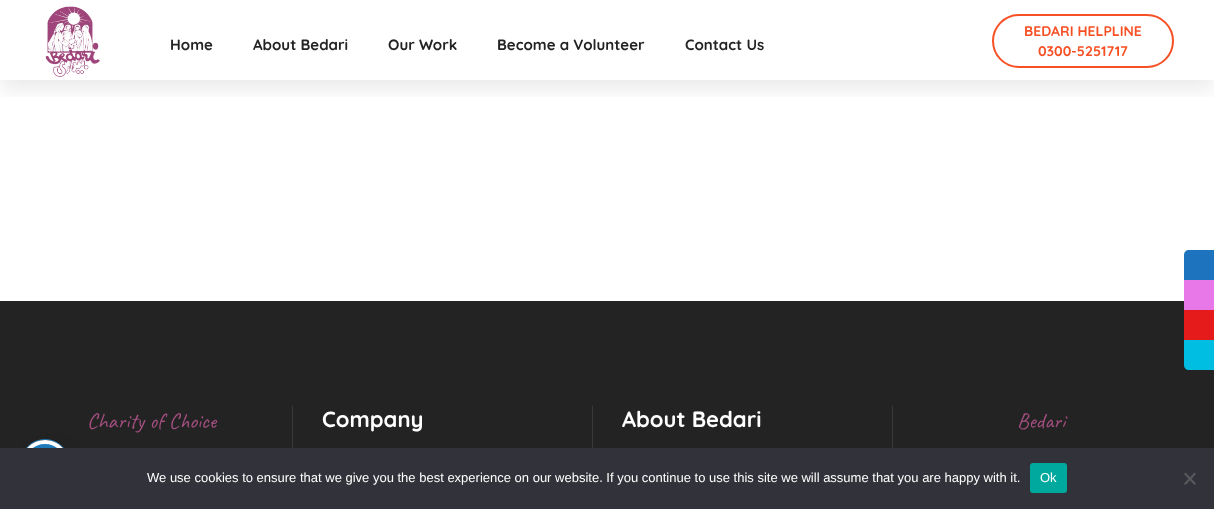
<svg xmlns="http://www.w3.org/2000/svg" width="1214" height="509">
	<defs>
		<clipPath id="clip1"><rect x="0" y="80" width="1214" height="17" /></clipPath>
	</defs>
	<rect width="100%" height="100%" fill="#FFFFFF" />
	<g clip-path="url(#clip1)">
		<rect x="0" y="20" width="1214" height="70" fill="#000000" fill-opacity="0.08" filter="blur(10px)" />
	</g>
	<image x="45" y="6" width="55" height="71" href="assets/img1.png" />
	<g font-family="Quicksand" font-size="15" font-weight="700" fill="#232323">
		<text x="170" y="50">Home</text>
		<text x="253" y="50">About Bedari</text>
		<text x="388" y="50">Our Work</text>
		<text x="497" y="50">Become a Volunteer</text>
		<text x="685" y="50">Contact Us</text>
	</g>
	<rect x="993" y="15" width="180" height="52" rx="26" fill="none" stroke="#F65024" stroke-width="2" />
	<g font-family="Quicksand" font-size="14" font-weight="700" fill="#F65024">
		<text x="1024" y="36">BEDARI HELPLINE</text>
		<text x="1038" y="56">0300-5251717</text>
	</g>
	<rect x="0" y="301" width="1214" height="147" fill="#232323" />
	<text x="87" y="428" font-family="Caveat" font-size="22" fill="#A34F80">Charity of Choice</text>
	<rect x="292" y="406" width="1" height="42" fill="#393939" />
	<text x="322" y="427" font-family="Quicksand" font-size="22" font-weight="700" fill="#FFFFFF">Company</text>
	<rect x="592" y="406" width="1" height="42" fill="#393939" />
	<text x="622" y="427" font-family="Quicksand" font-size="22" font-weight="700" fill="#FFFFFF">About Bedari</text>
	<rect x="892" y="406" width="1" height="42" fill="#393939" />
	<text x="1017" y="428" font-family="Caveat" font-size="22" fill="#A34F80">Bedari</text>
	<path d="M1189 250H1214V280H1184V255C1184 252 1186 250 1189 250Z" fill="#1E73BE" />
	<rect x="1184" y="280" width="30" height="30" fill="#E878E8" />
	<rect x="1184" y="310" width="30" height="30" fill="#E51B1B" />
	<path d="M1184 340H1214V370H1189C1186 370 1184 368 1184 365Z" fill="#00BDE2" />
	<circle cx="45" cy="464" r="24.5" fill="none" stroke="#1E7AB9" />
	<rect x="27" y="448" width="48" height="48" rx="24" fill="#000000" fill-opacity="0.2" filter="blur(8px)" />
	<circle cx="45" cy="464" r="22" fill="#1E7AB9" stroke="#FFFFFF" stroke-width="4" />
	<rect x="0" y="448" width="1214" height="61" fill="#32323A" />
	<text x="147" y="482" font-family="Liberation Sans" font-size="13" fill="#FFFFFF">We use cookies to ensure that we give you the best experience on our website. If you continue to use this site we will assume that you are happy with it.</text>
	<rect x="1030" y="463" width="37" height="30" rx="3" fill="#00A99D" />
	<text x="1040" y="482" font-family="Liberation Sans" font-size="13" fill="#FFFFFF">Ok</text>
	<path d="M1194.5 472.5L1196 474L1185.5 485L1184 483.5Z" fill="#59595D" />
	<path d="M1184 474L1185.5 472.5L1196 483.5L1194.5 485Z" fill="#59595D" />
</svg>
